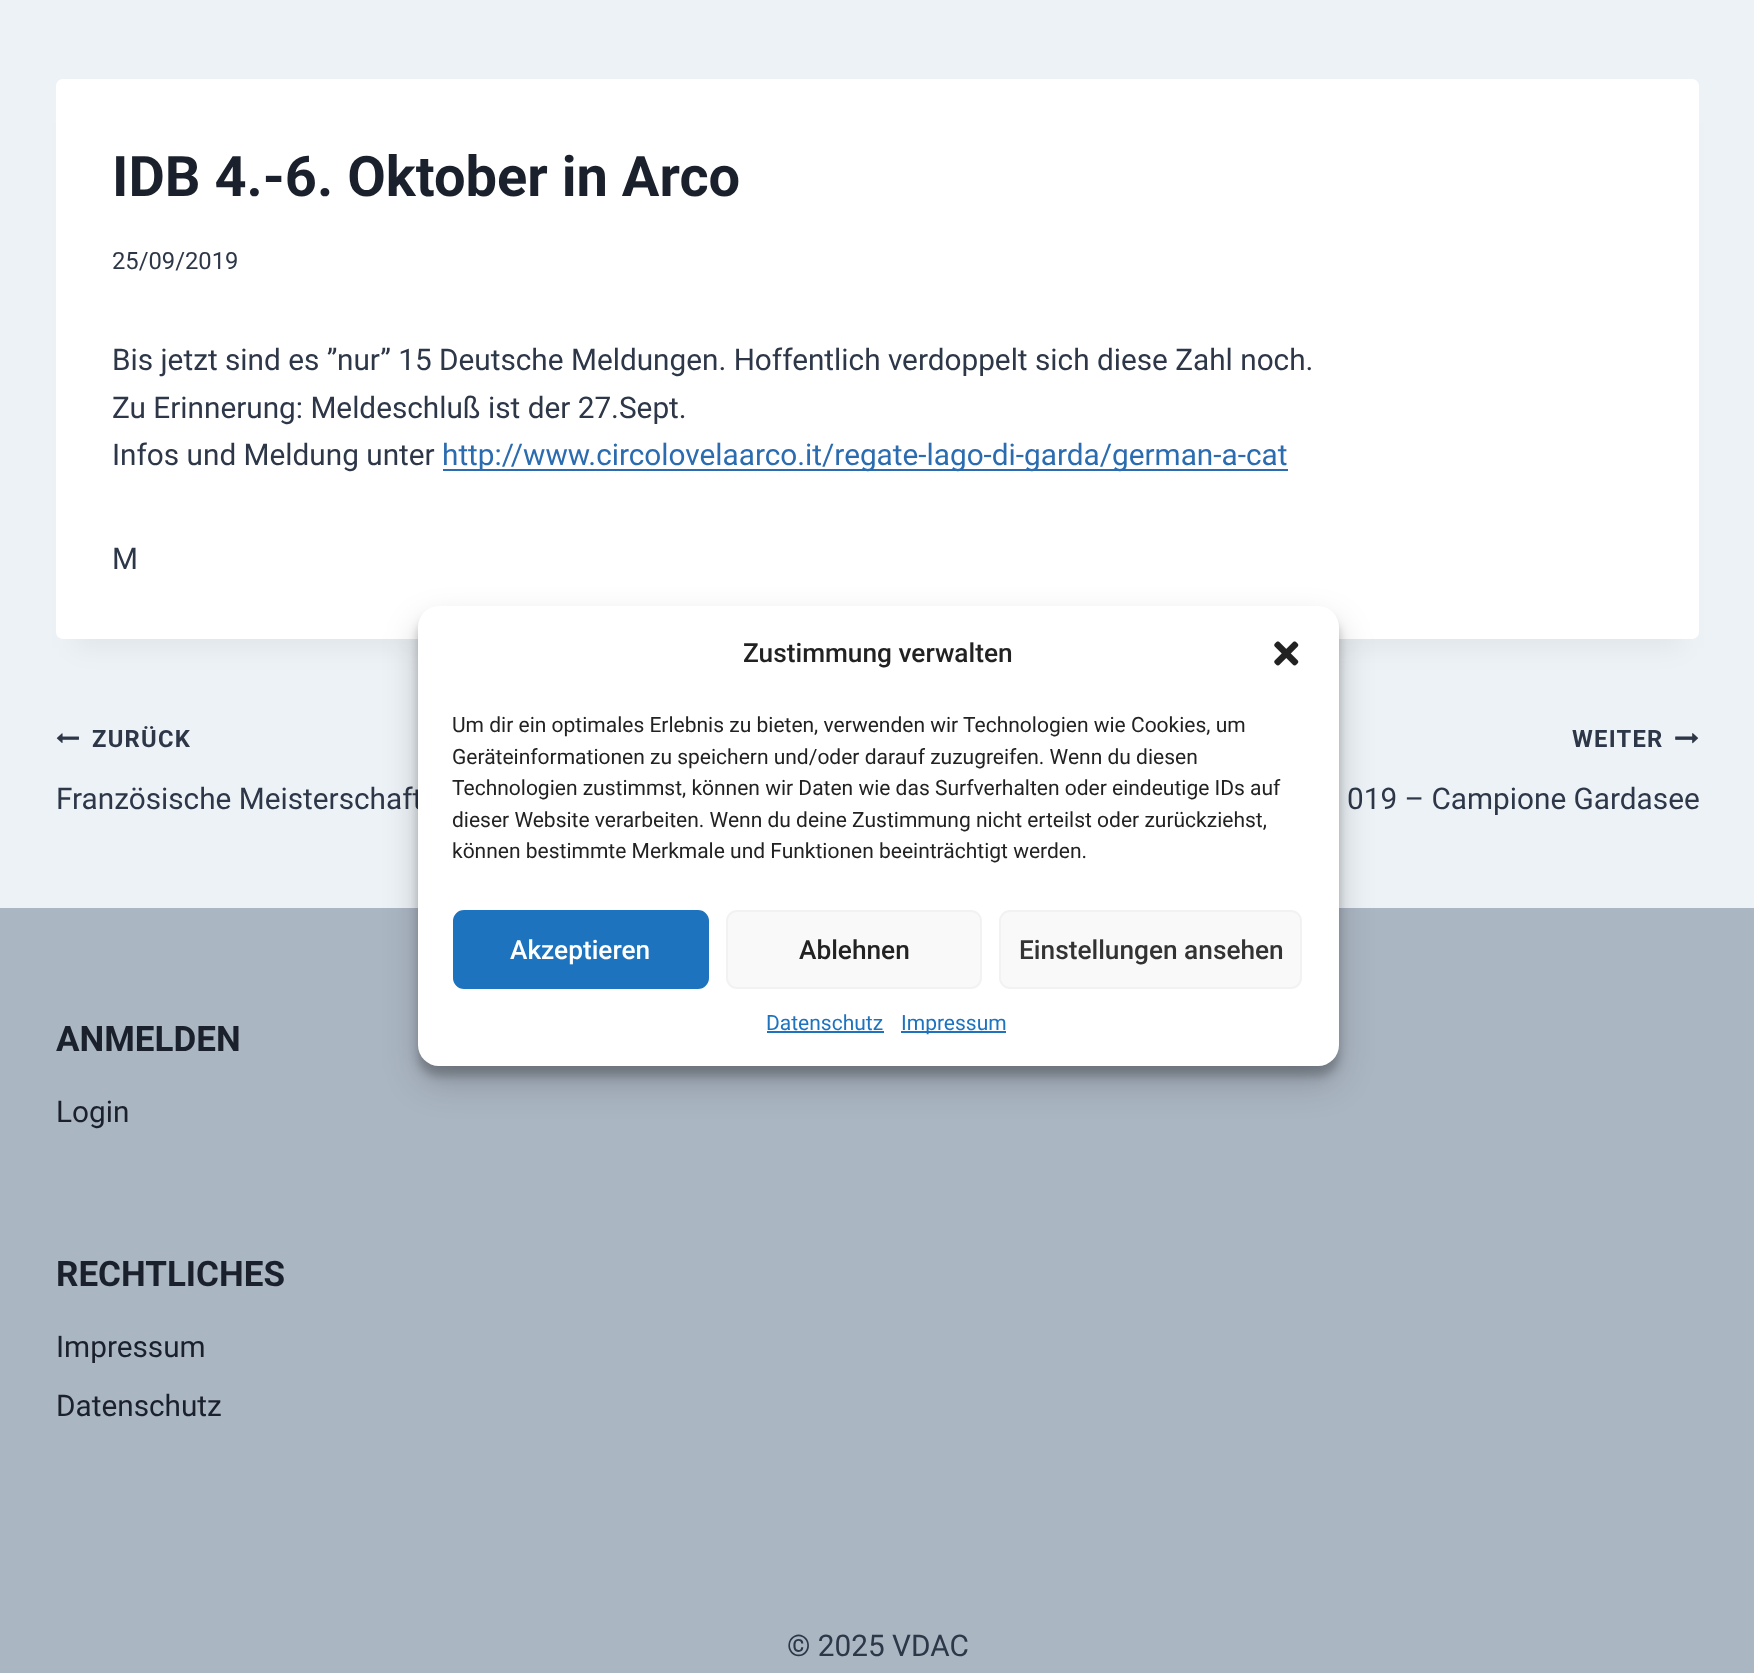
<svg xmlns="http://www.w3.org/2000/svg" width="1754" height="1673">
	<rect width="100%" height="100%" fill="#EDF2F7" />
	<rect x="74" y="123" width="1608" height="525" fill="#000000" fill-opacity="0.05" filter="blur(13px)" />
	<rect x="56" y="79" width="1643" height="560" rx="7" fill="#FFFFFF" />
	<text x="112" y="196" font-family="Roboto" font-size="56" font-weight="700" fill="#1A202C">IDB 4.-6. Oktober in Arco</text>
	<text x="112" y="269" font-family="Roboto" font-size="23.75" fill="#2D3748">25/09/2019</text>
	<g font-family="Roboto" font-size="29.75" fill="#2D3748">
		<text x="112" y="370">Bis jetzt sind es ”nur” 15 Deutsche Meldungen. Hoffentlich verdoppelt sich diese Zahl noch.</text>
		<text x="112" y="418">Zu Erinnerung: Meldeschluß ist der 27.Sept.</text>
		<text x="112" y="465">Infos und Meldung unter</text>
	</g>
	<rect x="443" y="469" width="845" height="2" fill="#2B6CB0" />
	<text x="442" y="465" font-family="Roboto" font-size="29.75" fill="#2B6CB0">http://www.circolovelaarco.it/regate-lago-di-garda/german-a-cat</text>
	<text x="112" y="569" font-family="Roboto" font-size="29.75" fill="#2D3748">M</text>
	<image x="56" y="733" width="23" height="10" href="assets/img1.png" />
	<text x="92" y="747" font-family="Roboto" font-size="23.75" font-weight="700" letter-spacing="1.25" fill="#2D3748">ZURÜCK</text>
	<text x="56" y="809" font-family="Roboto" font-size="29.75" fill="#2D3748">Französische Meisterschaft</text>
	<text x="1572" y="747" font-family="Roboto" font-size="23.75" font-weight="700" letter-spacing="1.25" fill="#2D3748">WEITER</text>
	<image x="1675" y="733" width="24" height="11" href="assets/img2.png" />
	<text x="1347" y="809" font-family="Roboto" font-size="29.75" fill="#2D3748">019 – Campione Gardasee</text>
	<rect x="0" y="908" width="1754" height="765" fill="#ABB6C3" />
	<text x="56" y="1051" font-family="Roboto" font-size="35" font-weight="700" fill="#1A202C">ANMELDEN</text>
	<text x="56" y="1122" font-family="Roboto" font-size="29.75" fill="#1A202C">Login</text>
	<text x="56" y="1286" font-family="Roboto" font-size="35" font-weight="700" fill="#1A202C">RECHTLICHES</text>
	<g font-family="Roboto" font-size="29.75" fill="#1A202C">
		<text x="56" y="1357">Impressum</text>
		<text x="56" y="1416">Datenschutz</text>
	</g>
	<text x="787" y="1656" font-family="Roboto" font-size="29.75" fill="#2D3748">© 2025 VDAC</text>
	<rect x="418" y="616" width="921" height="460" rx="21" fill="#000000" fill-opacity="0.23" filter="blur(5px)" />
	<rect x="418" y="623" width="921" height="460" rx="21" fill="#000000" fill-opacity="0.19" filter="blur(17.5px)" />
	<rect x="418" y="606" width="921" height="460" rx="21" fill="#FFFFFF" />
	<text x="743" y="662" font-family="Roboto" font-size="26.25" font-weight="500" fill="#222222">Zustimmung verwalten</text>
	<image x="1274" y="641" width="25" height="25" href="assets/img3.png" />
	<g font-family="Roboto" font-size="21" fill="#222222">
		<text x="452" y="732">Um dir ein optimales Erlebnis zu bieten, verwenden wir Technologien wie Cookies, um</text>
		<text x="452" y="764">Geräteinformationen zu speichern und/oder darauf zuzugreifen. Wenn du diesen</text>
		<text x="452" y="795">Technologien zustimmst, können wir Daten wie das Surfverhalten oder eindeutige IDs auf</text>
		<text x="452" y="827">dieser Website verarbeiten. Wenn du deine Zustimmung nicht erteilst oder zurückziehst,</text>
		<text x="452" y="858">können bestimmte Merkmale und Funktionen beeinträchtigt werden.</text>
	</g>
	<rect x="454" y="911" width="254" height="77" rx="10" fill="#1E73BE" stroke="#1E73BE" stroke-width="2" />
	<text x="510" y="959" font-family="Roboto" font-size="26.25" font-weight="500" fill="#FFFFFF">Akzeptieren</text>
	<rect x="727" y="911" width="254" height="77" rx="10" fill="#F9F9F9" stroke="#F2F2F2" stroke-width="2" />
	<text x="799" y="959" font-family="Roboto" font-size="26.25" font-weight="500" fill="#222222">Ablehnen</text>
	<rect x="1000" y="911" width="301" height="77" rx="10" fill="#F9F9F9" stroke="#F2F2F2" stroke-width="2" />
	<text x="1019" y="959" font-family="Roboto" font-size="26.25" font-weight="500" fill="#333333">Einstellungen ansehen</text>
	<text x="766" y="1030" font-family="Roboto" font-size="21" fill="#1E73BE">Datenschutz</text>
	<rect x="767" y="1031" width="117" height="2" fill="#1E73BE" />
	<rect x="901" y="1031" width="105" height="2" fill="#1E73BE" />
	<text x="901" y="1030" font-family="Roboto" font-size="21" fill="#1E73BE">Impressum</text>
</svg>
